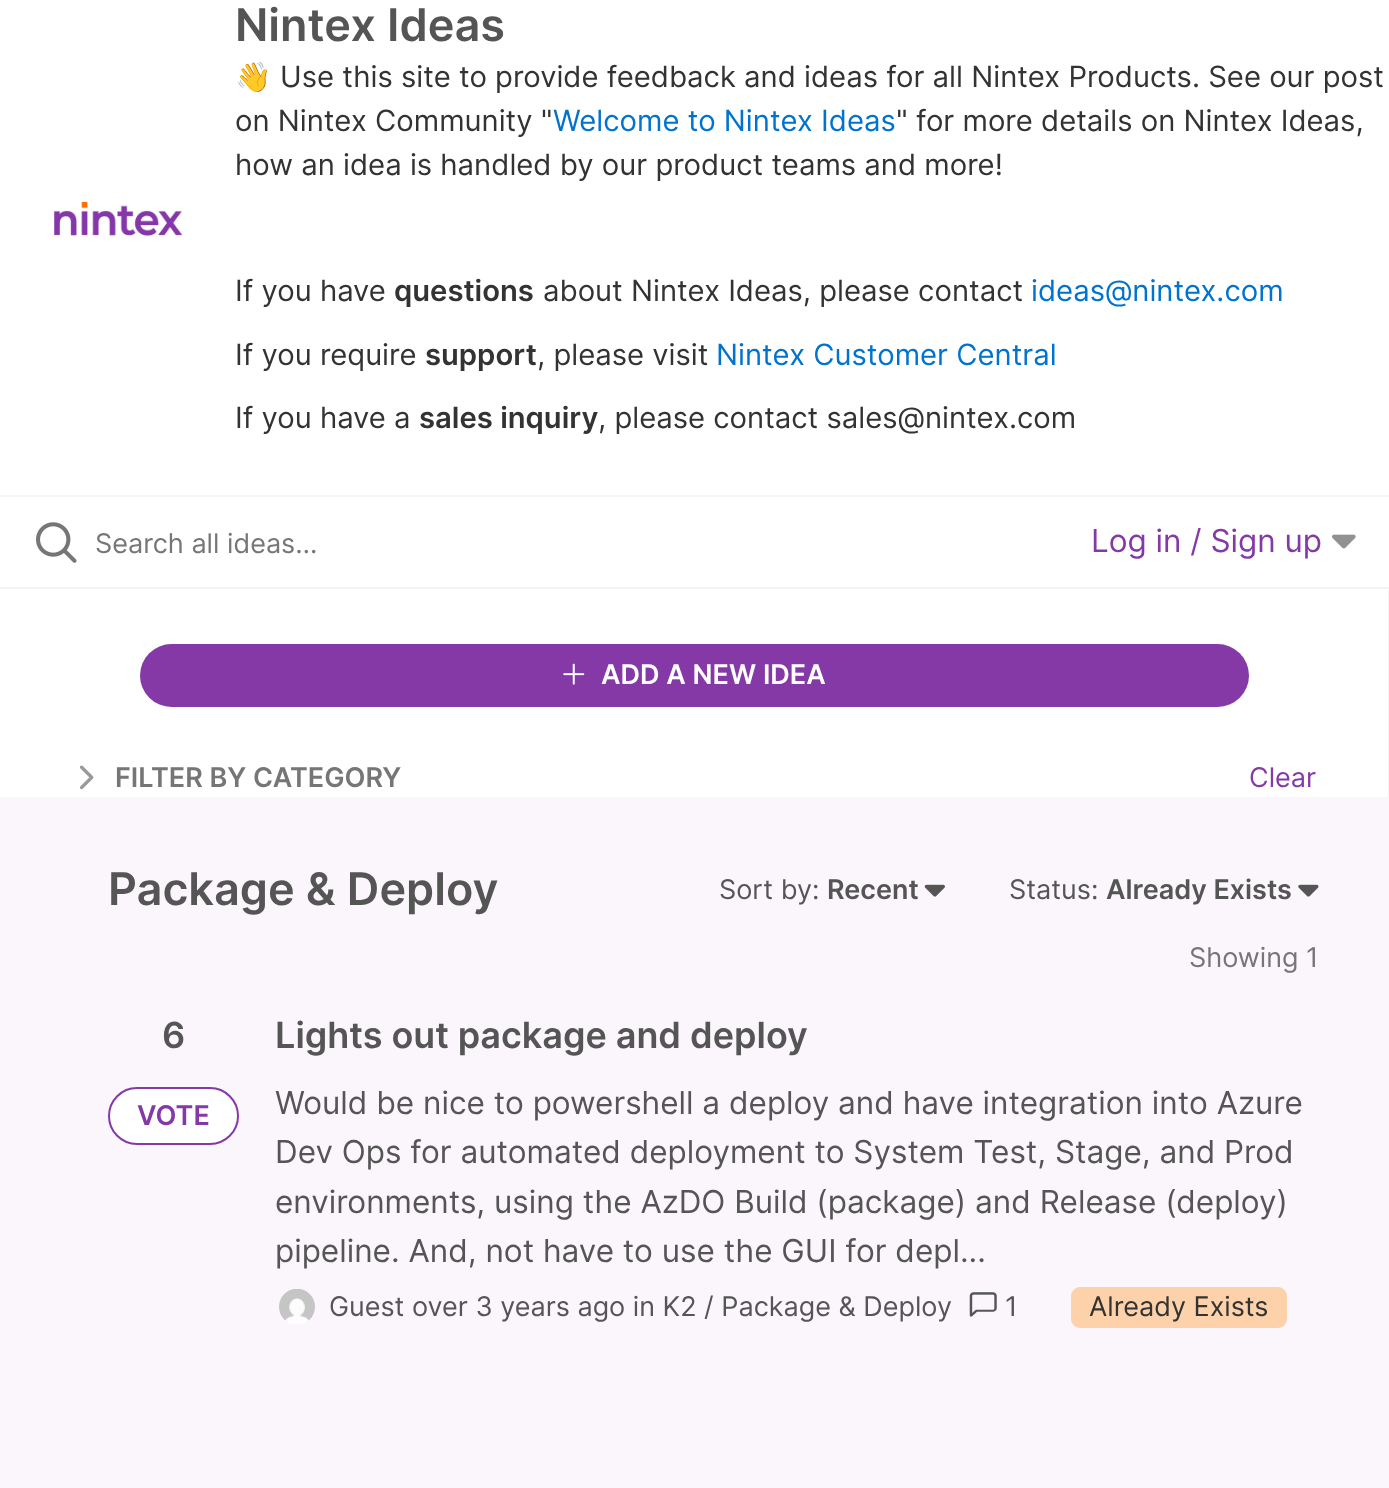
<svg xmlns="http://www.w3.org/2000/svg" width="1389" height="1488">
	<rect width="100%" height="100%" fill="#FAF6FB" />
	<rect x="0" y="0" width="1389" height="495" fill="#FFFFFF" />
	<rect x="0" y="495" width="1389" height="2" fill="#F4F4F4" />
	<image x="54" y="202" width="129" height="34" href="assets/img1.png" />
	<text x="235" y="41" font-family="Inter" font-size="45" font-weight="600" fill="#555555">Nintex Ideas</text>
	<text x="235" y="87" font-family="Noto Color Emoji" font-size="29.25" fill="#000000">👋</text>
	<g font-family="Inter" font-size="29.25" fill="#333333">
		<text x="280" y="87">Use this site to provide feedback and ideas for all Nintex Products. See our post</text>
		<text x="235" y="131">on Nintex Community "</text>
	</g>
	<text x="553" y="131" font-family="Inter" font-size="29.25" fill="#0073CF">Welcome to Nintex Ideas</text>
	<g font-family="Inter" font-size="29.25" fill="#333333">
		<text x="896" y="131">" for more details on Nintex Ideas,</text>
		<text x="235" y="175">how an idea is handled by our product teams and more!</text>
		<text x="235" y="301">If you have</text>
	</g>
	<text x="394" y="301" font-family="Inter" font-size="29.25" font-weight="600" fill="#333333">questions</text>
	<text x="543" y="301" font-family="Inter" font-size="29.25" fill="#333333">about Nintex Ideas, please contact</text>
	<text x="1031" y="301" font-family="Inter" font-size="29.25" fill="#0073CF">ideas@nintex.com</text>
	<text x="235" y="365" font-family="Inter" font-size="29.25" fill="#333333">If you require</text>
	<text x="425" y="365" font-family="Inter" font-size="29.25" font-weight="600" fill="#333333">support</text>
	<text x="537" y="365" font-family="Inter" font-size="29.25" fill="#333333">, please visit</text>
	<text x="716" y="365" font-family="Inter" font-size="29.25" fill="#0073CF">Nintex Customer Central</text>
	<text x="235" y="428" font-family="Inter" font-size="29.25" fill="#333333">If you have a</text>
	<text x="419" y="428" font-family="Inter" font-size="29.25" font-weight="600" fill="#333333">sales inquiry</text>
	<text x="598" y="428" font-family="Inter" font-size="29.25" fill="#333333">, please contact sales@nintex.com</text>
	<rect x="0" y="497" width="1389" height="93" fill="#FFFFFF" />
	<rect x="0" y="587" width="1389" height="2" fill="#F4F4F4" />
	<image x="36" y="522" width="41" height="41" href="assets/img2.png" />
	<text x="95" y="553" font-family="Inter" font-size="27" fill="#767676">Search all ideas…</text>
	<text x="1091" y="552" font-family="Inter" font-size="31.5" fill="#8439A6">Log in / Sign up</text>
	<image x="1332" y="534" width="24" height="15" href="assets/img3.png" />
	<rect x="0" y="590" width="1388" height="207" fill="#FFFFFF" />
	<rect x="1388" y="590" width="1" height="207" fill="#F4F4F4" />
	<rect x="140" y="644" width="1109" height="63" rx="31.5" fill="#8439A6" />
	<image x="563" y="663" width="22" height="22" href="assets/img4.png" />
	<text x="601" y="684" font-family="Inter" font-size="27" font-weight="600" fill="#FFFFFF">ADD A NEW IDEA</text>
	<image x="79" y="765" width="15" height="25" href="assets/img5.png" />
	<text x="115" y="787" font-family="Inter" font-size="27" font-weight="600" fill="#767676">FILTER BY CATEGORY</text>
	<text x="1249" y="787" font-family="Inter" font-size="27" fill="#8439A6">Clear</text>
	<text x="108" y="905" font-family="Inter" font-size="45" font-weight="600" fill="#555555">Package &amp; Deploy</text>
	<text x="719" y="899" font-family="Inter" font-size="27" fill="#555555">Sort by:</text>
	<text x="827" y="899" font-family="Inter" font-size="27" font-weight="600" fill="#555555">Recent</text>
	<image x="924" y="884" width="21" height="13" href="assets/img6.png" />
	<text x="1009" y="899" font-family="Inter" font-size="27" fill="#555555">Status:</text>
	<text x="1106" y="899" font-family="Inter" font-size="27" font-weight="600" fill="#555555">Already Exists</text>
	<image x="1298" y="884" width="21" height="13" href="assets/img7.png" />
	<text x="1189" y="967" font-family="Inter" font-size="27" fill="#767676">Showing 1</text>
	<text x="162" y="1048" font-family="Inter" font-size="36" font-weight="600" fill="#555555">6</text>
	<rect x="109" y="1088" width="129" height="56" rx="28" fill="#FFFFFF" stroke="#8439A6" stroke-width="2" />
	<text x="137" y="1125" font-family="Inter" font-size="27" font-weight="600" fill="#8439A6">VOTE</text>
	<text x="275" y="1048" font-family="Inter" font-size="36" font-weight="600" fill="#555555">Lights out package and deploy</text>
	<g font-family="Inter" font-size="31.5" fill="#555555">
		<text x="275" y="1114">Would be nice to powershell a deploy and have integration into Azure</text>
		<text x="275" y="1163">Dev Ops for automated deployment to System Test, Stage, and Prod</text>
		<text x="275" y="1213">environments, using the AzDO Build (package) and Release (deploy)</text>
		<text x="275" y="1262">pipeline. And, not have to use the GUI for depl...</text>
	</g>
	<image x="279" y="1289" width="36" height="35" href="assets/img8.png" />
	<text x="329" y="1316" font-family="Inter" font-size="27" fill="#555555">Guest over 3 years ago in K2 / Package &amp; Deploy</text>
	<image x="969" y="1292" width="28" height="25" href="assets/img9.png" />
	<text x="1005" y="1316" font-family="Inter" font-size="27" fill="#555555">1</text>
	<rect x="1071" y="1287" width="216" height="41" rx="9" fill="#FDD1A9" />
	<text x="1089" y="1316" font-family="Inter" font-size="27" fill="#333333">Already Exists</text>
</svg>
